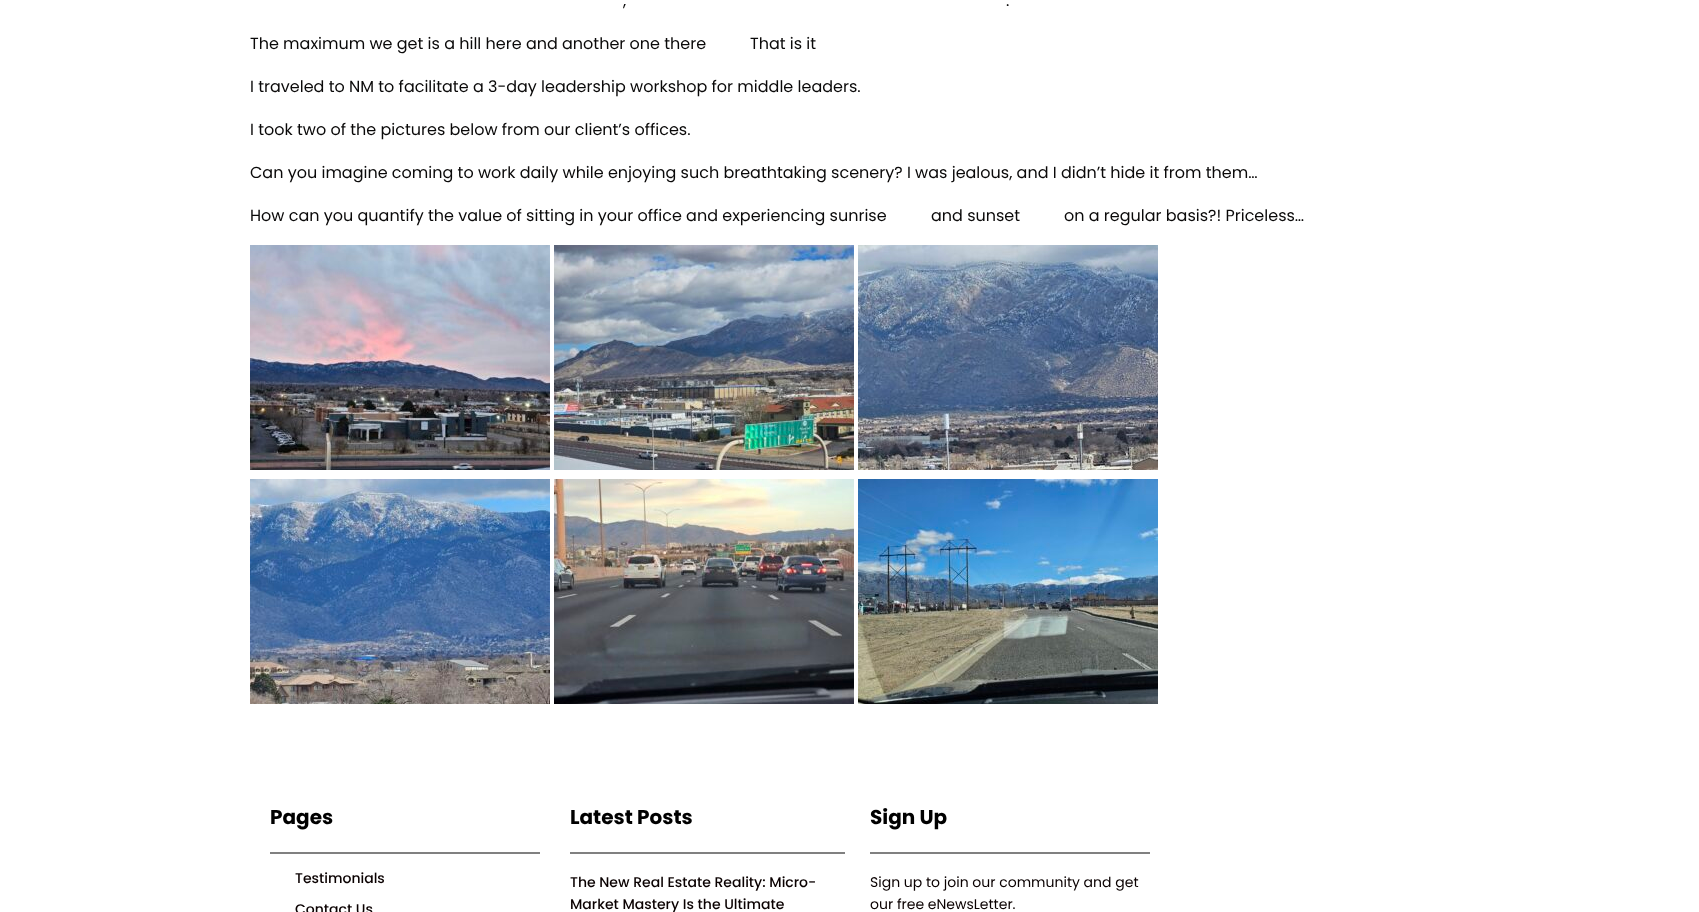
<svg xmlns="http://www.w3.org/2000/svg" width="1699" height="912">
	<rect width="100%" height="100%" fill="#FFFFFF" />
	<g font-family="Poppins" font-size="16" fill="#0A0909">
		<text x="623" y="6">,</text>
		<text x="1006" y="6">.</text>
		<text x="250" y="49">The maximum we get is a hill here and another one there</text>
		<text x="750" y="49">That is it</text>
		<text x="250" y="92">I traveled to NM to facilitate a 3-day leadership workshop for middle leaders.</text>
		<text x="250" y="135">I took two of the pictures below from our client’s offices.</text>
		<text x="250" y="178">Can you imagine coming to work daily while enjoying such breathtaking scenery? I was jealous, and I didn’t hide it from them…</text>
		<text x="250" y="221">How can you quantify the value of sitting in your office and experiencing sunrise</text>
		<text x="931" y="221">and sunset</text>
		<text x="1064" y="221">on a regular basis?! Priceless…</text>
	</g>
	<image x="250" y="245" width="300" height="225" href="assets/img1.png" />
	<image x="554" y="245" width="300" height="225" href="assets/img2.png" />
	<image x="858" y="245" width="300" height="225" href="assets/img3.png" />
	<image x="250" y="479" width="300" height="225" href="assets/img4.png" />
	<image x="554" y="479" width="300" height="225" href="assets/img5.png" />
	<image x="858" y="479" width="300" height="225" href="assets/img6.png" />
	<text x="270" y="824" font-family="Poppins" font-size="20" font-weight="700" fill="#000000">Pages</text>
	<rect x="270" y="852" width="270" height="2" fill="#808080" />
	<g font-family="Poppins" font-size="14" font-weight="500" fill="#0A0101">
		<text x="295" y="883">Testimonials</text>
		<text x="295" y="914">Contact Us</text>
	</g>
	<text x="570" y="824" font-family="Poppins" font-size="20" font-weight="700" fill="#000000">Latest Posts</text>
	<rect x="570" y="852" width="275" height="2" fill="#808080" />
	<g font-family="Poppins" font-size="14" font-weight="500" fill="#0A0101">
		<text x="570" y="887">The New Real Estate Reality: Micro-</text>
		<text x="570" y="909">Market Mastery Is the Ultimate</text>
	</g>
	<text x="870" y="824" font-family="Poppins" font-size="20" font-weight="700" fill="#000000">Sign Up</text>
	<rect x="870" y="852" width="280" height="2" fill="#808080" />
	<g font-family="Poppins" font-size="14" fill="#0A0101">
		<text x="870" y="887">Sign up to join our community and get</text>
		<text x="870" y="909">our free eNewsLetter.</text>
	</g>
</svg>
